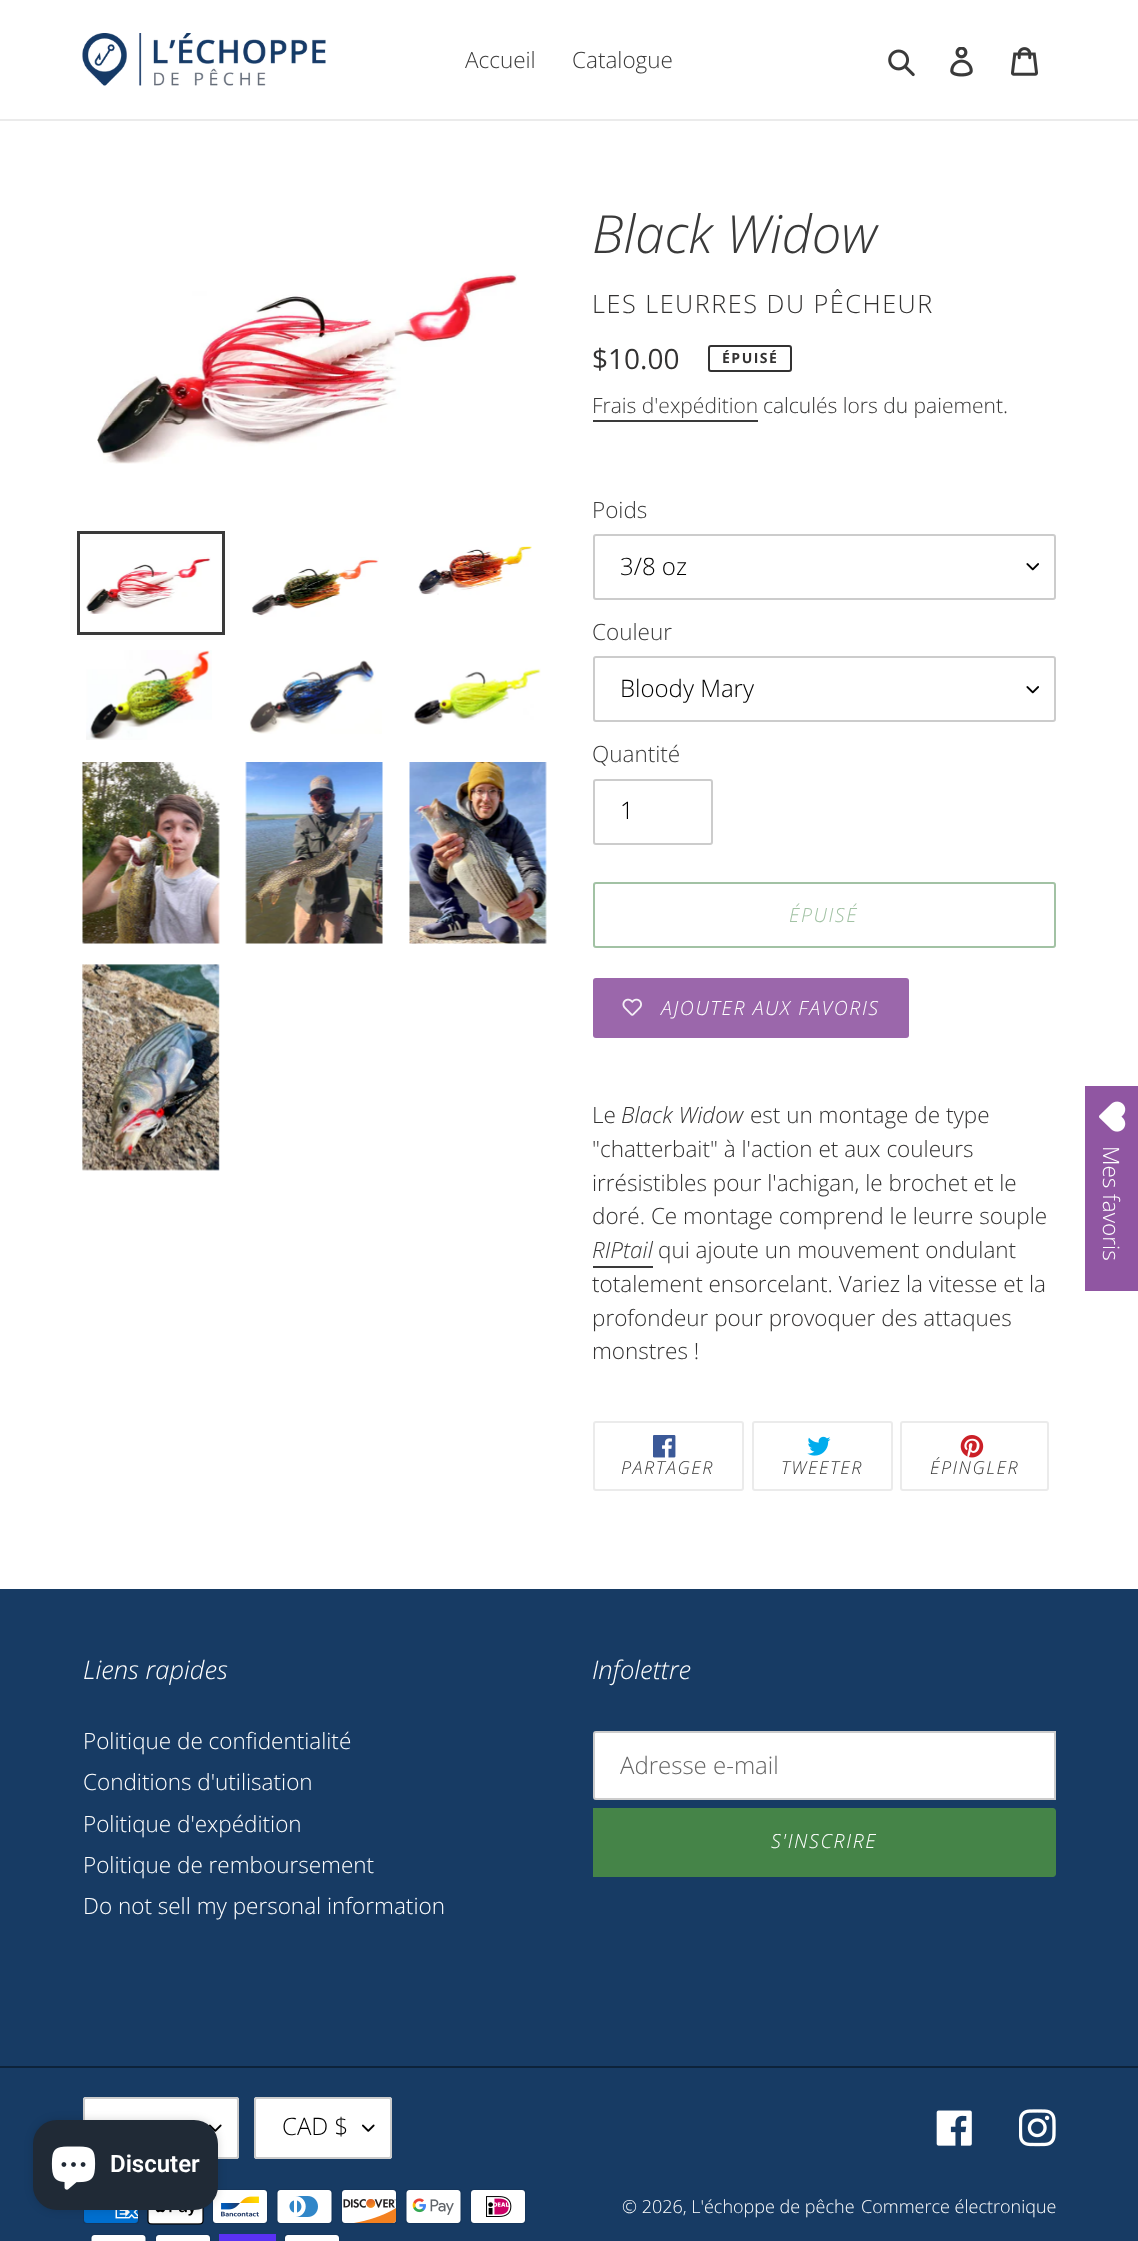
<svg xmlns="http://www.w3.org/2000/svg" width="1138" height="2241">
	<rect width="100%" height="100%" fill="#FFFFFF" />
	<rect x="0" y="119" width="1138" height="2" fill="#EBEBEB" />
	<image x="82" y="33" width="244" height="53" href="assets/img1.png" />
	<g font-family="Open Sans" font-size="22.5" font-weight="300" fill="#3A3A3A">
		<text x="465" y="68">Accueil</text>
		<text x="572" y="68">Catalogue</text>
	</g>
	<image x="888" y="49" width="27" height="28" href="assets/img2.png" />
	<image x="950" y="47" width="23" height="30" href="assets/img3.png" />
	<image x="1011" y="47" width="27" height="29" href="assets/img4.png" />
	<image x="97" y="273" width="420" height="191" href="assets/img5.png" />
	<rect x="78.5" y="532.5" width="145" height="101" fill="none" stroke="#3A3A3A" stroke-width="3" />
	<image x="86" y="557" width="125" height="57" href="assets/img6.png" />
	<image x="251" y="557" width="128" height="60" href="assets/img7.png" />
	<image x="418" y="546" width="114" height="49" href="assets/img8.png" />
	<image x="86" y="650" width="126" height="90" href="assets/img9.png" />
	<image x="249" y="660" width="133" height="74" href="assets/img10.png" />
	<image x="414" y="668" width="127" height="57" href="assets/img11.png" />
	<image x="82" y="762" width="138" height="182" href="assets/img12.png" />
	<image x="245" y="762" width="138" height="182" href="assets/img13.png" />
	<image x="409" y="762" width="138" height="182" href="assets/img14.png" />
	<image x="82" y="964" width="138" height="207" href="assets/img15.png" />
	<text x="592" y="253" font-family="Open Sans" font-size="52.5" font-weight="300" font-style="italic" fill="#3A3A3A">Black Widow</text>
	<text x="592" y="313" font-family="Open Sans" font-size="25.25" font-weight="300" letter-spacing="1.5" fill="#333232">LES LEURRES DU PÊCHEUR</text>
	<text x="592" y="369" font-family="Open Sans" font-size="28" fill="#333232">$10.00</text>
	<rect x="709" y="346" width="82" height="25" rx="2" fill="none" stroke="#333232" stroke-width="2" />
	<text x="722" y="363" font-family="Open Sans" font-size="14" font-weight="700" letter-spacing="1.5" fill="#333232">ÉPUISÉ</text>
	<text x="592" y="413" font-family="Open Sans" font-size="21" font-weight="300" fill="#3A3A3A">Frais d'expédition</text>
	<rect x="593" y="420" width="165" height="2" fill="#3A3A3A" />
	<text x="763" y="413" font-family="Open Sans" font-size="21" font-weight="300" fill="#333232">calculés lors du paiement.</text>
	<text x="592" y="518" font-family="Open Sans" font-size="22.5" font-weight="300" fill="#3A3A3A">Poids</text>
	<image x="1026" y="563" width="13" height="8" href="assets/img16.png" />
	<rect x="594" y="535" width="461" height="64" rx="2" fill="none" stroke="#CCCCCC" stroke-width="2" />
	<text x="620" y="575" font-family="Open Sans" font-size="24" font-weight="300" fill="#000000">3/8 oz</text>
	<text x="592" y="640" font-family="Open Sans" font-size="22.5" font-weight="300" fill="#3A3A3A">Couleur</text>
	<image x="1026" y="686" width="13" height="8" href="assets/img16.png" />
	<rect x="594" y="657" width="461" height="64" rx="2" fill="none" stroke="#CCCCCC" stroke-width="2" />
	<text x="620" y="697" font-family="Open Sans" font-size="24" font-weight="300" fill="#000000">Bloody Mary</text>
	<text x="592" y="762" font-family="Open Sans" font-size="22.5" font-weight="300" fill="#3A3A3A">Quantité</text>
	<rect x="594" y="780" width="118" height="64" rx="2" fill="none" stroke="#CCCCCC" stroke-width="2" />
	<text x="620" y="819" font-family="Open Sans" font-size="24" font-weight="300" fill="#000000">1</text>
	<rect x="594" y="883" width="461" height="64" rx="2" fill="none" stroke="#A2C2A4" stroke-width="2" />
	<text x="789" y="922" font-family="Open Sans" font-size="19.5" font-weight="300" font-style="italic" letter-spacing="1.6" fill="#A2C2A4">ÉPUISÉ</text>
	<rect x="593" y="978" width="316" height="60" rx="3" fill="#9B67AB" />
	<image x="622" y="998" width="20" height="18" href="assets/img17.png" />
	<text x="661" y="1015" font-family="Open Sans" font-size="19.5" font-weight="300" font-style="italic" letter-spacing="1.6" fill="#FFFFFF">AJOUTER AUX FAVORIS</text>
	<text x="592" y="1123" font-family="Open Sans" font-size="22.5" font-weight="300" fill="#333232">Le</text>
	<text x="621" y="1123" font-family="Open Sans" font-size="22.5" font-weight="300" font-style="italic" fill="#333232">Black Widow</text>
	<g font-family="Open Sans" font-size="22.5" font-weight="300" fill="#333232">
		<text x="750" y="1123">est un montage de type</text>
		<text x="592" y="1157">"chatterbait" à l'action et aux couleurs</text>
		<text x="592" y="1191">irrésistibles pour l'achigan, le brochet et le</text>
		<text x="592" y="1224">doré. Ce montage comprend le leurre souple</text>
	</g>
	<text x="592" y="1258" font-family="Open Sans" font-size="22.5" font-weight="300" font-style="italic" fill="#3A3A3A">RIPtail</text>
	<rect x="593" y="1266" width="60" height="2" fill="#3A3A3A" />
	<g font-family="Open Sans" font-size="22.5" font-weight="300" fill="#333232">
		<text x="658" y="1258">qui ajoute un mouvement ondulant</text>
		<text x="592" y="1292">totalement ensorcelant. Variez la vitesse et la</text>
		<text x="592" y="1326">profondeur pour provoquer des attaques</text>
		<text x="592" y="1359">monstres !</text>
	</g>
	<rect x="594" y="1422" width="149" height="68" rx="2" fill="none" stroke="#EBEBEB" stroke-width="2" />
	<image x="653" y="1435" width="23" height="23" href="assets/img18.png" />
	<text x="621" y="1474" font-family="Open Sans" font-size="18" font-weight="300" font-style="italic" letter-spacing="1.5" fill="#3A3A3A">PARTAGER</text>
	<rect x="753" y="1422" width="139" height="68" rx="2" fill="none" stroke="#EBEBEB" stroke-width="2" />
	<image x="807" y="1436" width="24" height="20" href="assets/img19.png" />
	<text x="781" y="1474" font-family="Open Sans" font-size="18" font-weight="300" font-style="italic" letter-spacing="1.5" fill="#3A3A3A">TWEETER</text>
	<rect x="901" y="1422" width="147" height="68" rx="2" fill="none" stroke="#EBEBEB" stroke-width="2" />
	<text x="930" y="1474" font-family="Open Sans" font-size="18" font-weight="300" font-style="italic" letter-spacing="1.5" fill="#3A3A3A">ÉPINGLER</text>
	<image x="960" y="1435" width="24" height="23" href="assets/img20.png" />
	<rect x="0" y="1589" width="1138" height="652" fill="#173B64" />
	<text x="83" y="1679" font-family="Open Sans" font-size="25.5" font-weight="300" font-style="italic" fill="#FFFFFF">Liens rapides</text>
	<g font-family="Open Sans" font-size="22.5" font-weight="300" fill="#FFFFFF">
		<text x="83" y="1749">Politique de confidentialité</text>
		<text x="83" y="1790">Conditions d'utilisation</text>
		<text x="83" y="1832">Politique d'expédition</text>
		<text x="83" y="1873">Politique de remboursement</text>
		<text x="83" y="1914">Do not sell my personal information</text>
	</g>
	<text x="592" y="1679" font-family="Open Sans" font-size="25.5" font-weight="300" font-style="italic" fill="#FFFFFF">Infolettre</text>
	<path d="M596 1732H1055V1799H596C595 1799 594 1798 594 1797V1734C594 1733 595 1732 596 1732Z" fill="#FFFFFF" stroke="#CCCCCC" stroke-width="2" />
	<text x="620" y="1774" font-family="Open Sans" font-size="24" font-weight="300" fill="#666666">Adresse e-mail</text>
	<path d="M593 1808H1053C1054.5 1808 1056 1809.5 1056 1811V1874C1056 1875.5 1054.5 1877 1053 1877H593Z" fill="#458448" />
	<text x="771" y="1848" font-family="Open Sans" font-size="19.5" font-weight="300" font-style="italic" letter-spacing="1.6" fill="#FFFFFF">S'INSCRIRE</text>
	<rect x="0" y="2066" width="1138" height="2" fill="#0D233B" />
	<rect x="83" y="2097" width="156" height="62" rx="3" fill="#FFFFFF" />
	<image x="209" y="2124" width="13" height="8" href="assets/img21.png" />
	<rect x="84" y="2098" width="154" height="60" rx="2" fill="none" stroke="#CCCCCC" stroke-width="2" />
	<rect x="254" y="2097" width="138" height="62" rx="3" fill="#FFFFFF" />
	<image x="362" y="2124" width="13" height="8" href="assets/img21.png" />
	<rect x="255" y="2098" width="136" height="60" rx="2" fill="none" stroke="#CCCCCC" stroke-width="2" />
	<text x="282" y="2135" font-family="Open Sans" font-size="24" font-weight="300" fill="#000000">CAD $</text>
	<image x="936" y="2110" width="36" height="36" href="assets/img22.png" />
	<image x="1019" y="2109" width="37" height="38" href="assets/img23.png" />
	<image x="83" y="2210" width="56" height="14" href="assets/img24.png" />
	<image x="147" y="2207" width="57" height="18" href="assets/img25.png" />
	<image x="212" y="2189" width="56" height="35" href="assets/img26.png" />
	<image x="276" y="2189" width="57" height="35" href="assets/img27.png" />
	<image x="341" y="2189" width="56" height="35" href="assets/img28.png" />
	<image x="405" y="2189" width="57" height="35" href="assets/img29.png" />
	<image x="470" y="2189" width="56" height="35" href="assets/img30.png" />
	<image x="90" y="2234" width="57" height="7" href="assets/img31.png" />
	<image x="155" y="2234" width="56" height="7" href="assets/img32.png" />
	<rect x="219" y="2234" width="57" height="7" fill="#5A31F4" />
	<image x="284" y="2234" width="56" height="7" href="assets/img32.png" />
	<g font-family="Open Sans" font-size="18" font-weight="300" fill="#FFFFFF">
		<text x="622" y="2213">© 2026, L'échoppe de pêche</text>
		<text x="861" y="2213">Commerce électronique</text>
	</g>
	<rect x="1085" y="1086" width="53" height="205" fill="#9056A2" />
	<image x="1099" y="1101" width="27" height="31" href="assets/img33.png" />
	<text x="1103" y="1146" transform="rotate(90 1103 1146)" font-family="Open Sans" font-size="22.5" font-weight="300" fill="#FFFFFF">Mes favoris</text>
	<rect x="33" y="2120" width="185" height="90" rx="24" fill="#000000" fill-opacity="0.15" filter="blur(4px)" />
	<rect x="33" y="2120" width="185" height="90" rx="24" fill="#202A36" />
	<image x="51" y="2146" width="45" height="44" href="assets/img34.png" />
	<text x="110" y="2172" font-family="Roboto" font-size="24" font-weight="600" fill="#FFFFFF">Discuter</text>
</svg>
